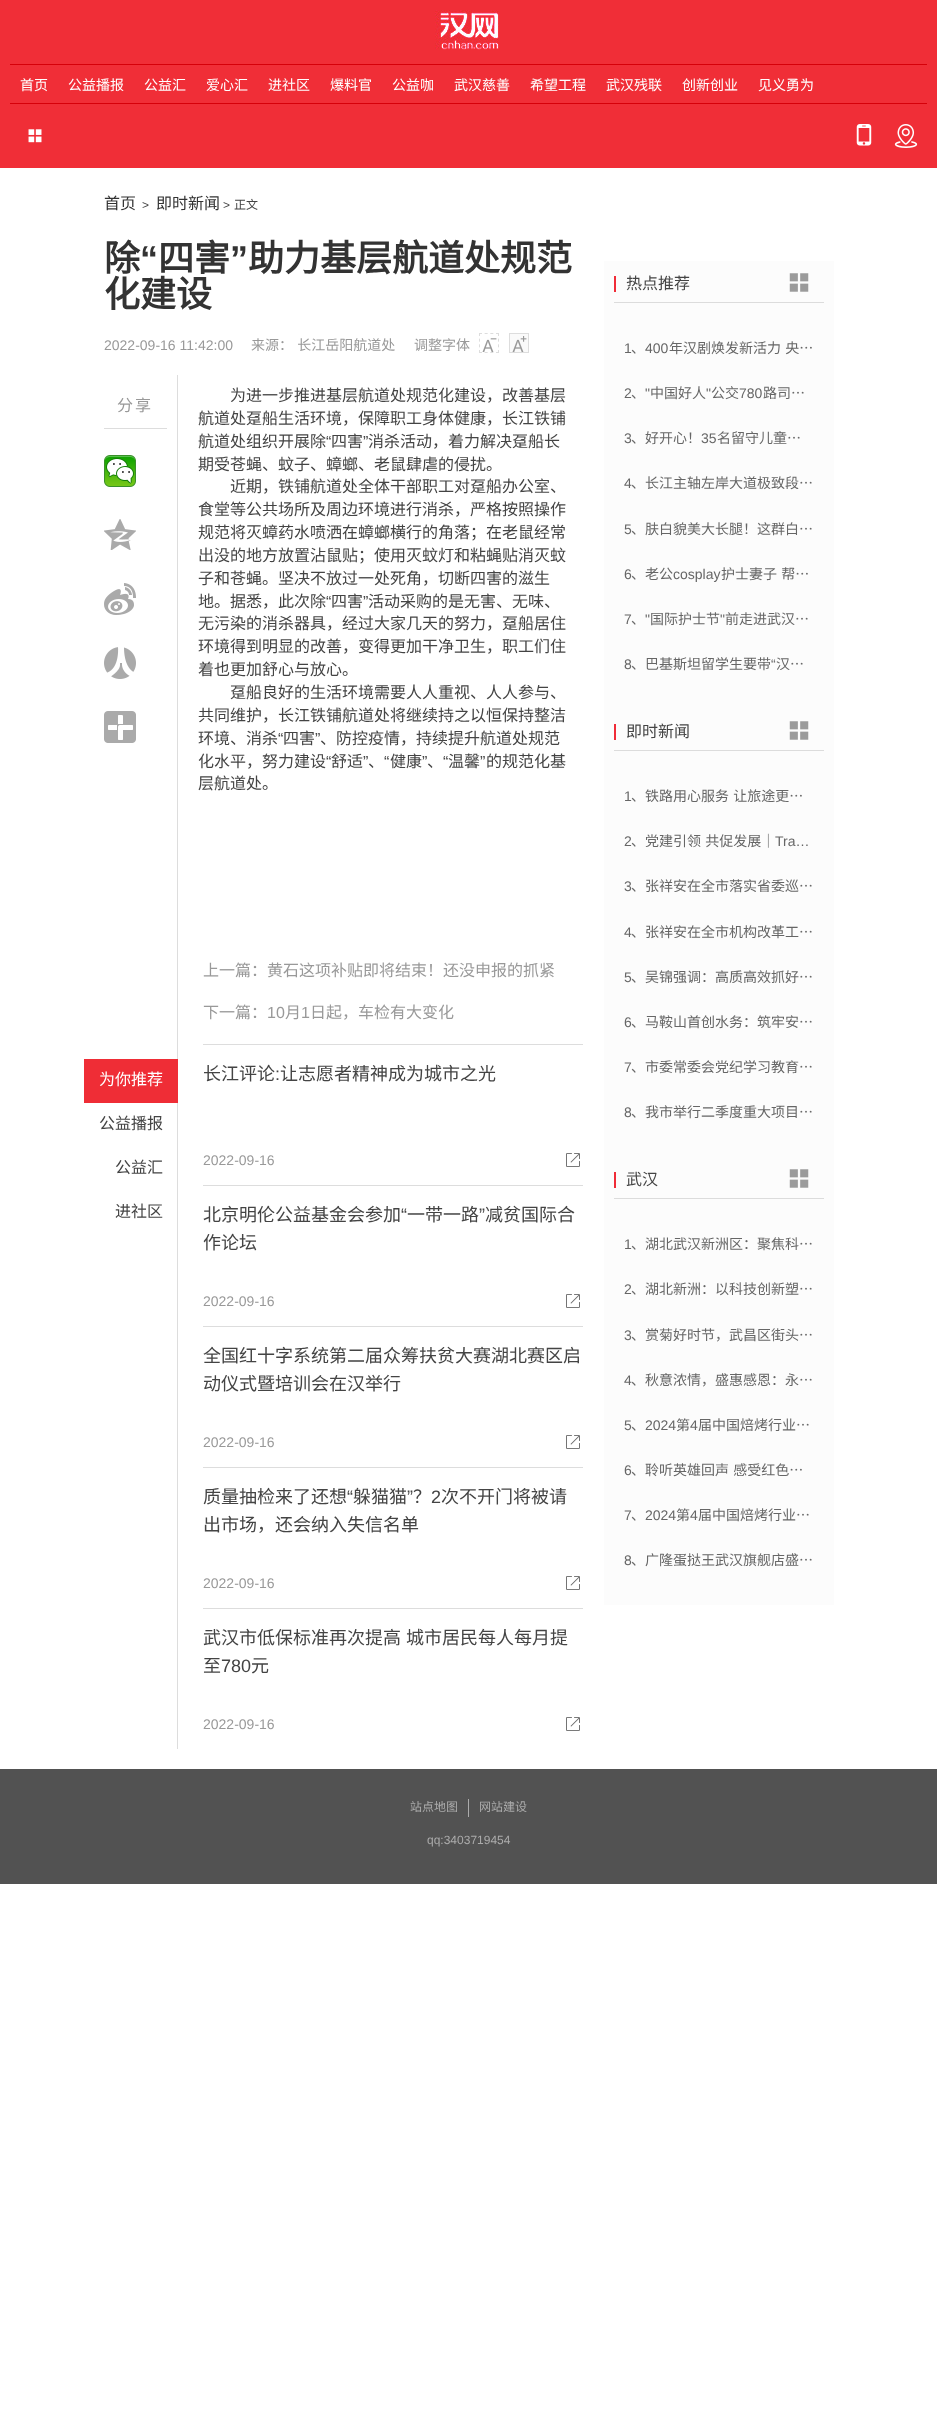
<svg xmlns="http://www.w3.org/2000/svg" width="937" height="2428">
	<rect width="100%" height="100%" fill="#FFFFFF" />
	<rect x="0" y="0" width="937" height="168" fill="#F02E37" />
	<image x="435" y="10" width="64" height="40" href="assets/img1.png" />
	<rect x="10" y="64" width="917" height="1" fill="#D60009" />
	<rect x="10" y="103" width="917" height="1" fill="#D60009" />
	<g font-family="Noto Sans CJK SC" font-size="14" fill="#FFFFFF">
		<text x="20" y="90">首页</text>
		<text x="68" y="90">公益播报</text>
		<text x="144" y="90">公益汇</text>
		<text x="206" y="90">爱心汇</text>
		<text x="268" y="90">进社区</text>
		<text x="330" y="90">爆料官</text>
		<text x="392" y="90">公益咖</text>
		<text x="454" y="90">武汉慈善</text>
		<text x="530" y="90">希望工程</text>
		<text x="606" y="90">武汉残联</text>
		<text x="682" y="90">创新创业</text>
		<text x="758" y="90">见义勇为</text>
	</g>
	<image x="28" y="129" width="14" height="14" href="assets/img2.png" />
	<image x="856" y="124" width="16" height="22" href="assets/img3.png" />
	<image x="894" y="124" width="24" height="24" href="assets/img4.png" />
	<text x="104" y="209" font-family="Noto Sans CJK SC" font-size="16" fill="#333333">首页</text>
	<text x="142" y="209" font-family="Liberation Sans" font-size="12" fill="#444444">&gt;</text>
	<text x="156" y="209" font-family="Noto Sans CJK SC" font-size="16" fill="#333333">即时新闻</text>
	<text x="223" y="209" font-family="Liberation Sans" font-size="12" fill="#444444">&gt;</text>
	<text x="234" y="209" font-family="Noto Sans CJK SC" font-size="12" fill="#444444">正文</text>
	<text x="104" y="271" font-family="Noto Sans CJK SC" font-size="36" font-weight="700" fill="#333333">除</text>
	<text x="140" y="271" font-family="Liberation Sans" font-size="36" font-weight="700" fill="#333333">“</text>
	<text x="158" y="271" font-family="Noto Sans CJK SC" font-size="36" font-weight="700" fill="#333333">四害</text>
	<text x="230" y="271" font-family="Liberation Sans" font-size="36" font-weight="700" fill="#333333">”</text>
	<g font-family="Noto Sans CJK SC" font-size="36" font-weight="700" fill="#333333">
		<text x="248" y="271">助力基层航道处规范</text>
		<text x="104" y="307">化建设</text>
	</g>
	<text x="104" y="350" font-family="Liberation Sans" font-size="14" fill="#999999">2022-09-16 11:42:00</text>
	<g font-family="Noto Sans CJK SC" font-size="14" fill="#999999">
		<text x="251" y="350" word-spacing="1">来源： 长江岳阳航道处</text>
		<text x="414" y="350">调整字体</text>
	</g>
	<path d="M479 333.5H499M498.5 333V353M479 352.5H499M479.5 333V353" fill="none" stroke="#DDDDDD" stroke-dasharray="3 2.67" />
	<image x="482" y="338" width="15" height="14" href="assets/img5.png" />
	<rect x="509.5" y="333.5" width="19" height="19" fill="#FAFAFA" stroke="#DDDDDD" />
	<image x="512" y="336" width="15" height="16" href="assets/img6.png" />
	<rect x="177" y="375" width="1" height="1374" fill="#DDDDDD" />
	<g font-family="Noto Sans CJK SC" font-size="16" fill="#444444">
		<text x="230" y="401">为进一步推进基层航道处规范化建设，改善基层</text>
		<text x="198" y="424">航道处趸船生活环境，保障职工身体健康，长江铁铺</text>
		<text x="198" y="447">航道处组织开展除</text>
	</g>
	<text x="326" y="447" font-family="Liberation Sans" font-size="16" fill="#444444">“</text>
	<text x="331" y="447" font-family="Noto Sans CJK SC" font-size="16" fill="#444444">四害</text>
	<text x="363" y="447" font-family="Liberation Sans" font-size="16" fill="#444444">”</text>
	<g font-family="Noto Sans CJK SC" font-size="16" fill="#444444">
		<text x="368" y="447">消杀活动，着力解决趸船长</text>
		<text x="198" y="470">期受苍蝇、蚊子、蟑螂、老鼠肆虐的侵扰。</text>
		<text x="230" y="492">近期，铁铺航道处全体干部职工对趸船办公室、</text>
		<text x="198" y="515">食堂等公共场所及周边环境进行消杀，严格按照操作</text>
		<text x="198" y="538">规范将灭蟑药水喷洒在蟑螂横行的角落；在老鼠经常</text>
		<text x="198" y="561">出没的地方放置沾鼠贴；使用灭蚊灯和粘蝇贴消灭蚊</text>
		<text x="198" y="584">子和苍蝇。坚决不放过一处死角，切断四害的滋生</text>
		<text x="198" y="607">地。据悉，此次除</text>
	</g>
	<text x="326" y="607" font-family="Liberation Sans" font-size="16" fill="#444444">“</text>
	<text x="331" y="607" font-family="Noto Sans CJK SC" font-size="16" fill="#444444">四害</text>
	<text x="363" y="607" font-family="Liberation Sans" font-size="16" fill="#444444">”</text>
	<g font-family="Noto Sans CJK SC" font-size="16" fill="#444444">
		<text x="368" y="607">活动采购的是无害、无味、</text>
		<text x="198" y="629">无污染的消杀器具，经过大家几天的努力，趸船居住</text>
		<text x="198" y="652">环境得到明显的改善，变得更加干净卫生，职工们住</text>
		<text x="198" y="675">着也更加舒心与放心。</text>
		<text x="230" y="698">趸船良好的生活环境需要人人重视、人人参与、</text>
		<text x="198" y="721">共同维护，长江铁铺航道处将继续持之以恒保持整洁</text>
		<text x="198" y="744">环境、消杀</text>
	</g>
	<text x="278" y="744" font-family="Liberation Sans" font-size="16" fill="#444444">“</text>
	<text x="283" y="744" font-family="Noto Sans CJK SC" font-size="16" fill="#444444">四害</text>
	<text x="315" y="744" font-family="Liberation Sans" font-size="16" fill="#444444">”</text>
	<g font-family="Noto Sans CJK SC" font-size="16" fill="#444444">
		<text x="320" y="744">、防控疫情，持续提升航道处规范</text>
		<text x="198" y="767">化水平，努力建设</text>
	</g>
	<text x="326" y="767" font-family="Liberation Sans" font-size="16" fill="#444444">“</text>
	<text x="331" y="767" font-family="Noto Sans CJK SC" font-size="16" fill="#444444">舒适</text>
	<g font-family="Liberation Sans" font-size="16" fill="#444444">
		<text x="363" y="767">”</text>
		<text x="384" y="767">“</text>
	</g>
	<text x="390" y="767" font-family="Noto Sans CJK SC" font-size="16" fill="#444444">健康</text>
	<g font-family="Liberation Sans" font-size="16" fill="#444444">
		<text x="422" y="767">”</text>
		<text x="443" y="767">“</text>
	</g>
	<text x="448" y="767" font-family="Noto Sans CJK SC" font-size="16" fill="#444444">温馨</text>
	<text x="480" y="767" font-family="Liberation Sans" font-size="16" fill="#444444">”</text>
	<g font-family="Noto Sans CJK SC" font-size="16" fill="#444444">
		<text x="486" y="767">的规范化基</text>
		<text x="368" y="767">、</text>
		<text x="427" y="767">、</text>
		<text x="198" y="789">层航道处。</text>
	</g>
	<g font-family="Noto Sans CJK SC" font-size="16" fill="#999999">
		<text x="203" y="976">上一篇：黄石这项补贴即将结束！还没申报的抓紧</text>
		<text x="203" y="1018">下一篇：</text>
	</g>
	<text x="267" y="1018" font-family="Liberation Sans" font-size="16" fill="#999999">10</text>
	<text x="285" y="1018" font-family="Noto Sans CJK SC" font-size="16" fill="#999999">月</text>
	<text x="301" y="1018" font-family="Liberation Sans" font-size="16" fill="#999999">1</text>
	<text x="310" y="1018" font-family="Noto Sans CJK SC" font-size="16" fill="#999999">日起，车检有大变化</text>
	<rect x="84" y="1059" width="94" height="44" fill="#EF2D36" />
	<text x="99" y="1085" font-family="Noto Sans CJK SC" font-size="16" fill="#FFFFFF">为你推荐</text>
	<g font-family="Noto Sans CJK SC" font-size="16" fill="#444444">
		<text x="99" y="1129">公益播报</text>
		<text x="115" y="1173">公益汇</text>
		<text x="115" y="1217">进社区</text>
	</g>
	<rect x="203" y="1044" width="380" height="1" fill="#DDDDDD" />
	<text x="203" y="1080" font-family="Noto Sans CJK SC" font-size="18" fill="#444444">长江评论</text>
	<text x="275" y="1080" font-family="Liberation Sans" font-size="18" fill="#444444">:</text>
	<text x="280" y="1080" font-family="Noto Sans CJK SC" font-size="18" fill="#444444">让志愿者精神成为城市之光</text>
	<text x="203" y="1165" font-family="Liberation Sans" font-size="14" fill="#999999">2022-09-16</text>
	<image x="566" y="1153" width="14" height="14" href="assets/img7.png" />
	<rect x="203" y="1185" width="380" height="1" fill="#DDDDDD" />
	<text x="203" y="1221" font-family="Noto Sans CJK SC" font-size="18" fill="#444444">北京明伦公益基金会参加</text>
	<text x="401" y="1221" font-family="Liberation Sans" font-size="18" fill="#444444">“</text>
	<text x="407" y="1221" font-family="Noto Sans CJK SC" font-size="18" fill="#444444">一带一路</text>
	<text x="479" y="1221" font-family="Liberation Sans" font-size="18" fill="#444444">”</text>
	<g font-family="Noto Sans CJK SC" font-size="18" fill="#444444">
		<text x="485" y="1221">减贫国际合</text>
		<text x="203" y="1249">作论坛</text>
	</g>
	<text x="203" y="1306" font-family="Liberation Sans" font-size="14" fill="#999999">2022-09-16</text>
	<image x="566" y="1294" width="14" height="14" href="assets/img7.png" />
	<rect x="203" y="1326" width="380" height="1" fill="#DDDDDD" />
	<g font-family="Noto Sans CJK SC" font-size="18" fill="#444444">
		<text x="203" y="1362">全国红十字系统第二届众筹扶贫大赛湖北赛区启</text>
		<text x="203" y="1390">动仪式暨培训会在汉举行</text>
	</g>
	<text x="203" y="1447" font-family="Liberation Sans" font-size="14" fill="#999999">2022-09-16</text>
	<image x="566" y="1435" width="14" height="14" href="assets/img7.png" />
	<rect x="203" y="1467" width="380" height="1" fill="#DDDDDD" />
	<text x="203" y="1503" font-family="Noto Sans CJK SC" font-size="18" fill="#444444">质量抽检来了还想</text>
	<text x="347" y="1503" font-family="Liberation Sans" font-size="18" fill="#444444">“</text>
	<text x="353" y="1503" font-family="Noto Sans CJK SC" font-size="18" fill="#444444">躲猫猫</text>
	<text x="407" y="1503" font-family="Liberation Sans" font-size="18" fill="#444444">”</text>
	<text x="413" y="1503" font-family="Noto Sans CJK SC" font-size="18" fill="#444444">？</text>
	<text x="431" y="1503" font-family="Liberation Sans" font-size="18" fill="#444444">2</text>
	<g font-family="Noto Sans CJK SC" font-size="18" fill="#444444">
		<text x="441" y="1503">次不开门将被请</text>
		<text x="203" y="1531">出市场，还会纳入失信名单</text>
	</g>
	<text x="203" y="1588" font-family="Liberation Sans" font-size="14" fill="#999999">2022-09-16</text>
	<image x="566" y="1576" width="14" height="14" href="assets/img7.png" />
	<rect x="203" y="1608" width="380" height="1" fill="#DDDDDD" />
	<g font-family="Noto Sans CJK SC" font-size="18" fill="#444444">
		<text x="203" y="1644" word-spacing="1">武汉市低保标准再次提高 城市居民每人每月提</text>
		<text x="203" y="1672">至</text>
	</g>
	<text x="221" y="1672" font-family="Liberation Sans" font-size="18" fill="#444444">780</text>
	<text x="251" y="1672" font-family="Noto Sans CJK SC" font-size="18" fill="#444444">元</text>
	<text x="203" y="1729" font-family="Liberation Sans" font-size="14" fill="#999999">2022-09-16</text>
	<image x="566" y="1717" width="14" height="14" href="assets/img7.png" />
	<rect x="104" y="428" width="63" height="1" fill="#DDDDDD" />
	<text x="117" y="411" font-family="Noto Sans CJK SC" font-size="16" letter-spacing="2" fill="#999999">分享</text>
	<image x="104" y="455" width="32" height="32" href="assets/img8.png" />
	<image x="104" y="519" width="32" height="31" href="assets/img9.png" />
	<image x="104" y="583" width="32" height="32" href="assets/img10.png" />
	<image x="104" y="647" width="32" height="32" href="assets/img11.png" />
	<image x="104" y="711" width="32" height="32" href="assets/img12.png" />
	<rect x="604" y="261" width="230" height="1344" fill="#FCFCFC" />
	<rect x="614" y="302" width="210" height="1" fill="#DCDCDC" />
	<rect x="614" y="276" width="2" height="16" fill="#F02C38" />
	<text x="626" y="289" font-family="Noto Sans CJK SC" font-size="16" fill="#444444">热点推荐</text>
	<image x="789" y="273" width="20" height="19" href="assets/img13.png" />
	<text x="624" y="353" font-family="Liberation Sans" font-size="14" fill="#666666">1</text>
	<text x="631" y="353" font-family="Noto Sans CJK SC" font-size="14" fill="#666666">、</text>
	<text x="645" y="353" font-family="Liberation Sans" font-size="14" fill="#666666">400</text>
	<text x="669" y="353" word-spacing="1" font-family="Noto Sans CJK SC" font-size="14" fill="#666666">年汉剧焕发新活力 央…</text>
	<text x="624" y="398" font-family="Liberation Sans" font-size="14" fill="#666666">2</text>
	<text x="631" y="398" font-family="Noto Sans CJK SC" font-size="14" fill="#666666">、</text>
	<text x="645" y="398" font-family="Liberation Sans" font-size="14" fill="#666666">"</text>
	<text x="650" y="398" font-family="Noto Sans CJK SC" font-size="14" fill="#666666">中国好人</text>
	<text x="706" y="398" font-family="Liberation Sans" font-size="14" fill="#666666">"</text>
	<text x="711" y="398" font-family="Noto Sans CJK SC" font-size="14" fill="#666666">公交</text>
	<text x="739" y="398" font-family="Liberation Sans" font-size="14" fill="#666666">780</text>
	<text x="763" y="398" font-family="Noto Sans CJK SC" font-size="14" fill="#666666">路司…</text>
	<text x="624" y="443" font-family="Liberation Sans" font-size="14" fill="#666666">3</text>
	<text x="631" y="443" font-family="Noto Sans CJK SC" font-size="14" fill="#666666">、好开心！</text>
	<text x="701" y="443" font-family="Liberation Sans" font-size="14" fill="#666666">35</text>
	<text x="717" y="443" font-family="Noto Sans CJK SC" font-size="14" fill="#666666">名留守儿童…</text>
	<text x="624" y="488" font-family="Liberation Sans" font-size="14" fill="#666666">4</text>
	<text x="631" y="488" font-family="Noto Sans CJK SC" font-size="14" fill="#666666">、长江主轴左岸大道极致段…</text>
	<text x="624" y="534" font-family="Liberation Sans" font-size="14" fill="#666666">5</text>
	<text x="631" y="534" font-family="Noto Sans CJK SC" font-size="14" fill="#666666">、肤白貌美大长腿！这群白…</text>
	<text x="624" y="579" font-family="Liberation Sans" font-size="14" fill="#666666">6</text>
	<text x="631" y="579" font-family="Noto Sans CJK SC" font-size="14" fill="#666666">、老公</text>
	<text x="673" y="579" font-family="Liberation Sans" font-size="14" fill="#666666">cosplay</text>
	<text x="721" y="579" word-spacing="1" font-family="Noto Sans CJK SC" font-size="14" fill="#666666">护士妻子 帮…</text>
	<g font-family="Liberation Sans" font-size="14" fill="#666666">
		<text x="624" y="624">7</text>
		<text x="645" y="624">"</text>
	</g>
	<text x="650" y="624" font-family="Noto Sans CJK SC" font-size="14" fill="#666666">国际护士节</text>
	<text x="720" y="624" font-family="Liberation Sans" font-size="14" fill="#666666">"</text>
	<g font-family="Noto Sans CJK SC" font-size="14" fill="#666666">
		<text x="725" y="624" word-spacing="1">前走进武汉…</text>
		<text x="631" y="624">、</text>
	</g>
	<text x="624" y="669" font-family="Liberation Sans" font-size="14" fill="#666666">8</text>
	<text x="631" y="669" font-family="Noto Sans CJK SC" font-size="14" fill="#666666">、巴基斯坦留学生要带</text>
	<text x="771" y="669" font-family="Liberation Sans" font-size="14" fill="#666666">“</text>
	<text x="776" y="669" font-family="Noto Sans CJK SC" font-size="14" fill="#666666">汉…</text>
	<rect x="614" y="750" width="210" height="1" fill="#DCDCDC" />
	<rect x="614" y="724" width="2" height="16" fill="#F02C38" />
	<text x="626" y="737" font-family="Noto Sans CJK SC" font-size="16" fill="#444444">即时新闻</text>
	<image x="789" y="721" width="20" height="19" href="assets/img13.png" />
	<text x="624" y="801" font-family="Liberation Sans" font-size="14" fill="#666666">1</text>
	<text x="631" y="801" word-spacing="1" font-family="Noto Sans CJK SC" font-size="14" fill="#666666">、铁路用心服务 让旅途更…</text>
	<text x="624" y="846" font-family="Liberation Sans" font-size="14" fill="#666666">2</text>
	<text x="631" y="846" word-spacing="1" font-family="Noto Sans CJK SC" font-size="14" fill="#666666">、党建引领 共促发展｜</text>
	<g font-family="Liberation Sans" font-size="14" fill="#666666">
		<text x="775" y="846">Tra…</text>
		<text x="624" y="891">3</text>
	</g>
	<text x="631" y="891" font-family="Noto Sans CJK SC" font-size="14" fill="#666666">、张祥安在全市落实省委巡…</text>
	<text x="624" y="937" font-family="Liberation Sans" font-size="14" fill="#666666">4</text>
	<text x="631" y="937" word-spacing="1" font-family="Noto Sans CJK SC" font-size="14" fill="#666666">、张祥安在全市机构改革工…</text>
	<text x="624" y="982" font-family="Liberation Sans" font-size="14" fill="#666666">5</text>
	<text x="631" y="982" word-spacing="1" font-family="Noto Sans CJK SC" font-size="14" fill="#666666">、吴锦强调：高质高效抓好…</text>
	<text x="624" y="1027" font-family="Liberation Sans" font-size="14" fill="#666666">6</text>
	<text x="631" y="1027" word-spacing="1" font-family="Noto Sans CJK SC" font-size="14" fill="#666666">、马鞍山首创水务：筑牢安…</text>
	<text x="624" y="1072" font-family="Liberation Sans" font-size="14" fill="#666666">7</text>
	<text x="631" y="1072" font-family="Noto Sans CJK SC" font-size="14" fill="#666666">、市委常委会党纪学习教育…</text>
	<text x="624" y="1117" font-family="Liberation Sans" font-size="14" fill="#666666">8</text>
	<text x="631" y="1117" font-family="Noto Sans CJK SC" font-size="14" fill="#666666">、我市举行二季度重大项目…</text>
	<rect x="614" y="1198" width="210" height="1" fill="#DCDCDC" />
	<rect x="614" y="1172" width="2" height="16" fill="#F02C38" />
	<text x="626" y="1185" font-family="Noto Sans CJK SC" font-size="16" fill="#444444">武汉</text>
	<image x="789" y="1169" width="20" height="19" href="assets/img13.png" />
	<text x="624" y="1249" font-family="Liberation Sans" font-size="14" fill="#666666">1</text>
	<text x="631" y="1249" word-spacing="1" font-family="Noto Sans CJK SC" font-size="14" fill="#666666">、湖北武汉新洲区：聚焦科…</text>
	<text x="624" y="1294" font-family="Liberation Sans" font-size="14" fill="#666666">2</text>
	<text x="631" y="1294" font-family="Noto Sans CJK SC" font-size="14" fill="#666666">、湖北新洲：以科技创新塑…</text>
	<text x="624" y="1340" font-family="Liberation Sans" font-size="14" fill="#666666">3</text>
	<text x="631" y="1340" font-family="Noto Sans CJK SC" font-size="14" fill="#666666">、赏菊好时节，武昌区街头…</text>
	<text x="624" y="1385" font-family="Liberation Sans" font-size="14" fill="#666666">4</text>
	<text x="631" y="1385" font-family="Noto Sans CJK SC" font-size="14" fill="#666666">、秋意浓情，盛惠感恩：永…</text>
	<text x="624" y="1430" font-family="Liberation Sans" font-size="14" fill="#666666">5</text>
	<text x="631" y="1430" font-family="Noto Sans CJK SC" font-size="14" fill="#666666">、</text>
	<text x="645" y="1430" font-family="Liberation Sans" font-size="14" fill="#666666">2024</text>
	<text x="676" y="1430" font-family="Noto Sans CJK SC" font-size="14" fill="#666666">第</text>
	<text x="690" y="1430" font-family="Liberation Sans" font-size="14" fill="#666666">4</text>
	<text x="698" y="1430" font-family="Noto Sans CJK SC" font-size="14" fill="#666666">届中国焙烤行业…</text>
	<text x="624" y="1475" font-family="Liberation Sans" font-size="14" fill="#666666">6</text>
	<text x="631" y="1475" word-spacing="1" font-family="Noto Sans CJK SC" font-size="14" fill="#666666">、聆听英雄回声 感受红色…</text>
	<text x="624" y="1520" font-family="Liberation Sans" font-size="14" fill="#666666">7</text>
	<text x="631" y="1520" font-family="Noto Sans CJK SC" font-size="14" fill="#666666">、</text>
	<text x="645" y="1520" font-family="Liberation Sans" font-size="14" fill="#666666">2024</text>
	<text x="676" y="1520" font-family="Noto Sans CJK SC" font-size="14" fill="#666666">第</text>
	<text x="690" y="1520" font-family="Liberation Sans" font-size="14" fill="#666666">4</text>
	<text x="698" y="1520" font-family="Noto Sans CJK SC" font-size="14" fill="#666666">届中国焙烤行业…</text>
	<text x="624" y="1565" font-family="Liberation Sans" font-size="14" fill="#666666">8</text>
	<text x="631" y="1565" font-family="Noto Sans CJK SC" font-size="14" fill="#666666">、广隆蛋挞王武汉旗舰店盛…</text>
	<rect x="0" y="1769" width="937" height="115" fill="#525252" />
	<text x="410" y="1811" font-family="Noto Sans CJK SC" font-size="12" fill="#ABABAB">站点地图</text>
	<rect x="468" y="1799" width="1" height="18" fill="#ABABAB" />
	<text x="479" y="1811" font-family="Noto Sans CJK SC" font-size="12" fill="#ABABAB">网站建设</text>
	<text x="427" y="1844" font-family="Liberation Sans" font-size="12" fill="#ABABAB">qq:3403719454</text>
</svg>
